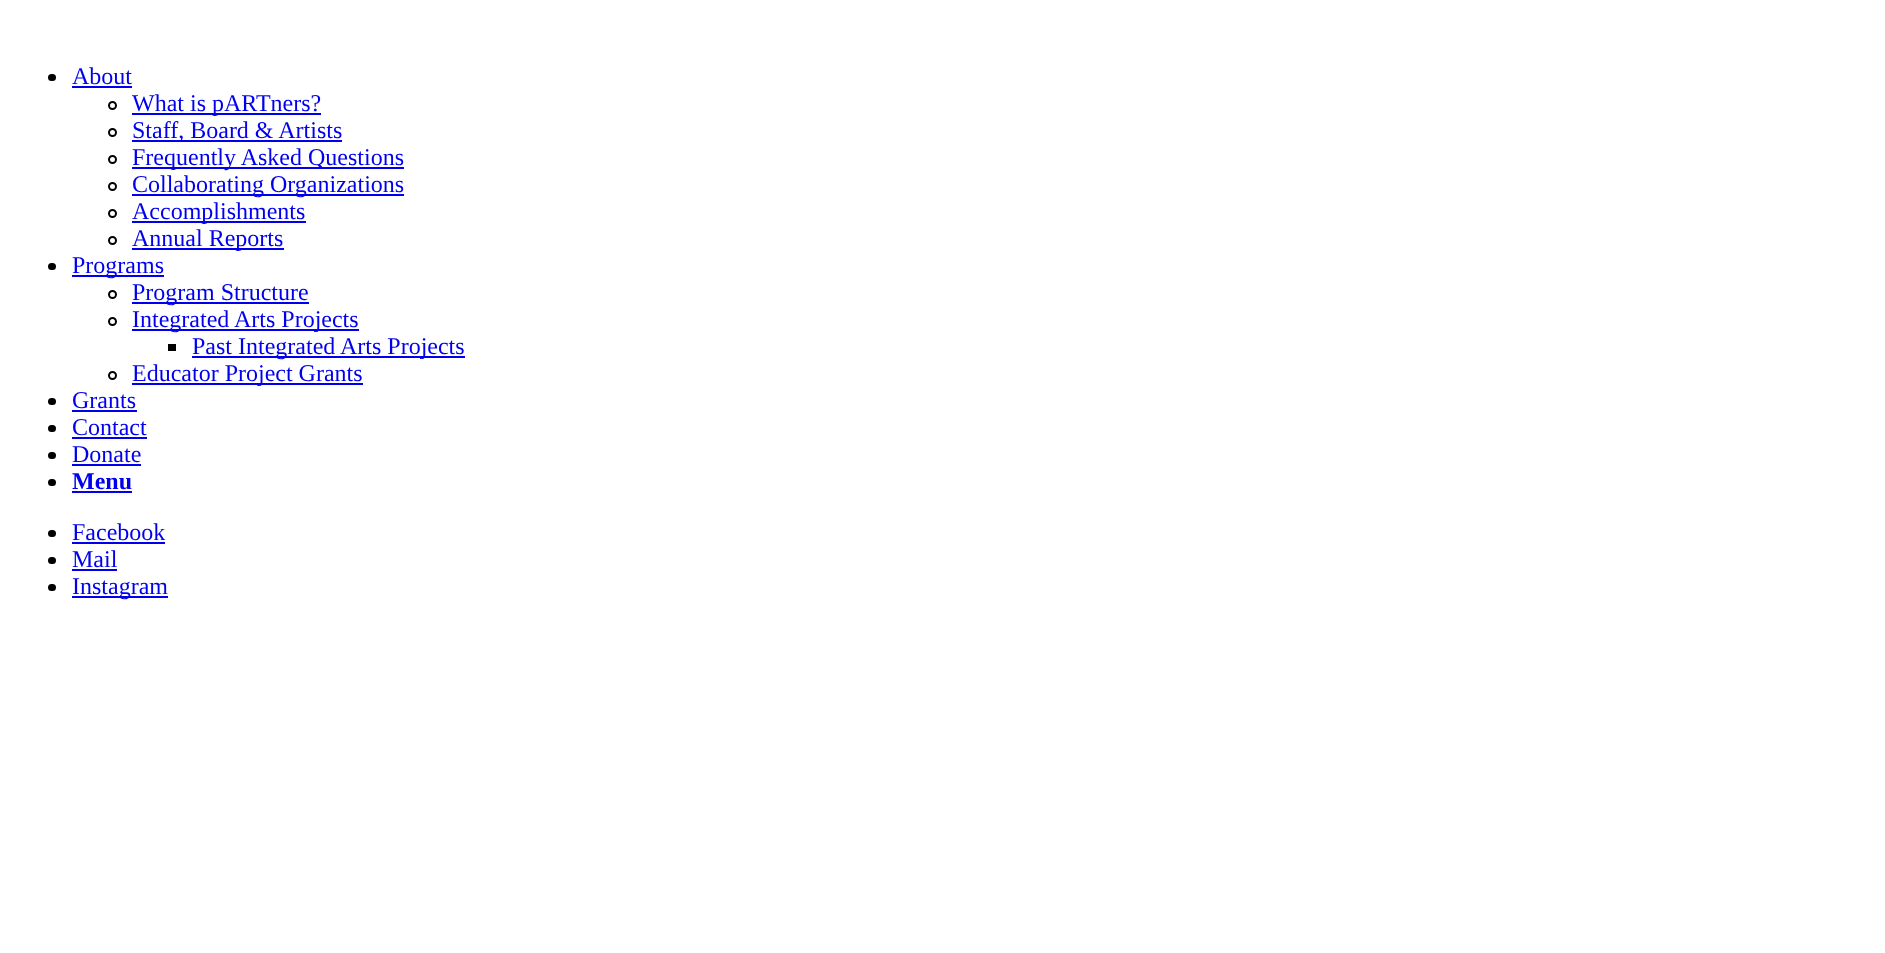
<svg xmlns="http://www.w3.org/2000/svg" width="1885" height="953">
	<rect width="100%" height="100%" fill="#FFFFFF" />
	<rect x="48" y="74" width="8" height="7" rx="3.5" fill="#000000" />
	<text x="72" y="84" font-family="Liberation Serif" font-size="24" fill="#0000EE">About</text>
	<rect x="72" y="86" width="60" height="2" fill="#0000EE" />
	<circle cx="112.5" cy="105.5" r="3.5" fill="none" stroke="#000000" stroke-width="2" />
	<rect x="132" y="113" width="189" height="2" fill="#0000EE" />
	<text x="132" y="111" font-family="Liberation Serif" font-size="24" fill="#0000EE">What is pARTners?</text>
	<circle cx="112.5" cy="132.5" r="3.5" fill="none" stroke="#000000" stroke-width="2" />
	<rect x="132" y="140" width="210" height="2" fill="#0000EE" />
	<text x="132" y="138" font-family="Liberation Serif" font-size="24" fill="#0000EE">Staff, Board &amp; Artists</text>
	<circle cx="112.5" cy="159.5" r="3.5" fill="none" stroke="#000000" stroke-width="2" />
	<rect x="132" y="167" width="272" height="2" fill="#0000EE" />
	<text x="132" y="165" font-family="Liberation Serif" font-size="24" fill="#0000EE">Frequently Asked Questions</text>
	<circle cx="112.5" cy="186.5" r="3.5" fill="none" stroke="#000000" stroke-width="2" />
	<rect x="132" y="194" width="272" height="2" fill="#0000EE" />
	<text x="132" y="192" font-family="Liberation Serif" font-size="24" fill="#0000EE">Collaborating Organizations</text>
	<circle cx="112.5" cy="213.5" r="3.5" fill="none" stroke="#000000" stroke-width="2" />
	<rect x="132" y="221" width="174" height="2" fill="#0000EE" />
	<text x="132" y="219" font-family="Liberation Serif" font-size="24" fill="#0000EE">Accomplishments</text>
	<circle cx="112.5" cy="240.5" r="3.5" fill="none" stroke="#000000" stroke-width="2" />
	<rect x="132" y="248" width="152" height="2" fill="#0000EE" />
	<text x="132" y="246" font-family="Liberation Serif" font-size="24" fill="#0000EE">Annual Reports</text>
	<rect x="48" y="263" width="8" height="7" rx="3.5" fill="#000000" />
	<rect x="72" y="275" width="92" height="2" fill="#0000EE" />
	<text x="72" y="273" font-family="Liberation Serif" font-size="24" fill="#0000EE">Programs</text>
	<circle cx="112.5" cy="294.5" r="3.5" fill="none" stroke="#000000" stroke-width="2" />
	<rect x="132" y="302" width="177" height="2" fill="#0000EE" />
	<text x="132" y="300" font-family="Liberation Serif" font-size="24" fill="#0000EE">Program Structure</text>
	<circle cx="112.5" cy="321.5" r="3.5" fill="none" stroke="#000000" stroke-width="2" />
	<rect x="132" y="329" width="227" height="2" fill="#0000EE" />
	<text x="132" y="327" font-family="Liberation Serif" font-size="24" fill="#0000EE">Integrated Arts Projects</text>
	<rect x="168" y="344" width="8" height="7" fill="#000000" />
	<rect x="192" y="356" width="273" height="2" fill="#0000EE" />
	<text x="192" y="354" font-family="Liberation Serif" font-size="24" fill="#0000EE">Past Integrated Arts Projects</text>
	<circle cx="112.5" cy="375.5" r="3.5" fill="none" stroke="#000000" stroke-width="2" />
	<rect x="132" y="383" width="231" height="2" fill="#0000EE" />
	<text x="132" y="381" font-family="Liberation Serif" font-size="24" fill="#0000EE">Educator Project Grants</text>
	<rect x="48" y="398" width="8" height="7" rx="3.5" fill="#000000" />
	<text x="72" y="408" font-family="Liberation Serif" font-size="24" fill="#0000EE">Grants</text>
	<rect x="72" y="410" width="65" height="2" fill="#0000EE" />
	<rect x="48" y="425" width="8" height="7" rx="3.5" fill="#000000" />
	<text x="72" y="435" font-family="Liberation Serif" font-size="24" fill="#0000EE">Contact</text>
	<rect x="72" y="437" width="75" height="2" fill="#0000EE" />
	<rect x="48" y="452" width="8" height="7" rx="3.5" fill="#000000" />
	<text x="72" y="462" font-family="Liberation Serif" font-size="24" fill="#0000EE">Donate</text>
	<rect x="72" y="464" width="69" height="2" fill="#0000EE" />
	<rect x="48" y="479" width="8" height="7" rx="3.5" fill="#000000" />
	<text x="72" y="489" font-family="Liberation Serif" font-size="24" font-weight="700" fill="#0000EE">Menu</text>
	<rect x="72" y="491" width="60" height="2" fill="#0000EE" />
	<rect x="48" y="530" width="8" height="7" rx="3.5" fill="#000000" />
	<text x="72" y="540" font-family="Liberation Serif" font-size="24" fill="#0000EE">Facebook</text>
	<rect x="72" y="542" width="93" height="2" fill="#0000EE" />
	<rect x="48" y="557" width="8" height="7" rx="3.5" fill="#000000" />
	<text x="72" y="567" font-family="Liberation Serif" font-size="24" fill="#0000EE">Mail</text>
	<rect x="72" y="569" width="45" height="2" fill="#0000EE" />
	<rect x="48" y="584" width="8" height="7" rx="3.5" fill="#000000" />
	<rect x="72" y="596" width="96" height="2" fill="#0000EE" />
	<text x="72" y="594" font-family="Liberation Serif" font-size="24" fill="#0000EE">Instagram</text>
</svg>
